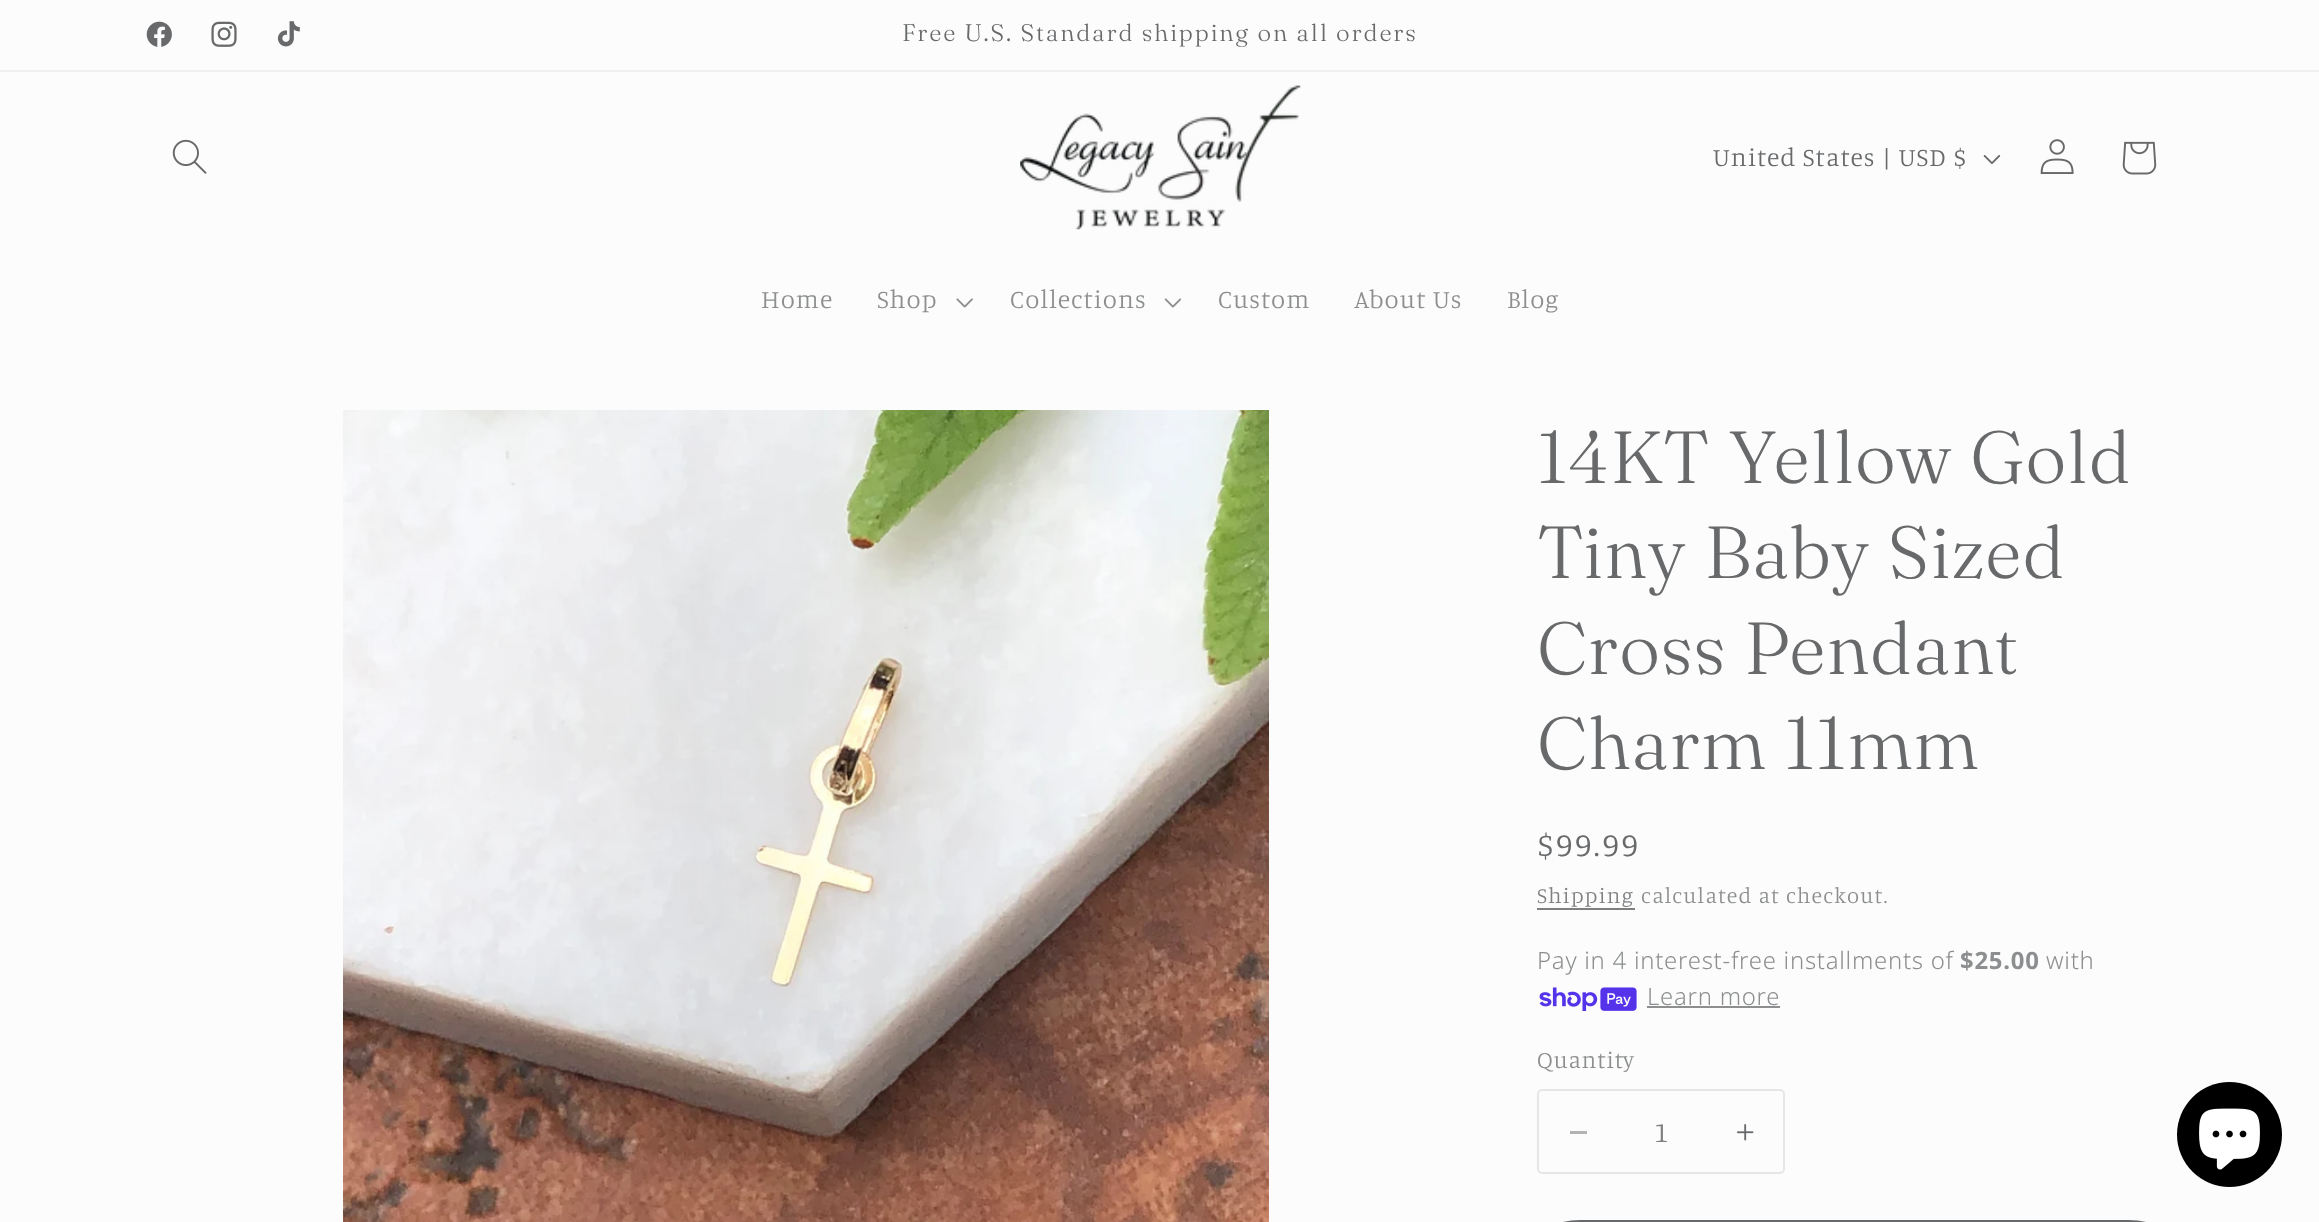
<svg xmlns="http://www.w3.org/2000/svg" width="2319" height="1222">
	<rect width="100%" height="100%" fill="#FCFCFC" />
	<rect x="0" y="70" width="2319" height="2" fill="#F0F0F0" />
	<image x="146" y="21" width="26" height="26" href="assets/img1.png" />
	<image x="211" y="21" width="26" height="26" href="assets/img2.png" />
	<image x="277" y="21" width="23" height="26" href="assets/img3.png" />
	<text x="902" y="41" font-family="'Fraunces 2'" font-size="23.9" font-weight="300" letter-spacing="1.85" fill="#67696B">Free U.S. Standard shipping on all orders</text>
	<image x="172" y="139" width="35" height="35" href="assets/img4.png" />
	<image x="1020" y="85" width="281" height="145" href="assets/img5.png" />
	<text x="1713" y="166" font-family="Manuale" font-size="25.75" font-weight="300" letter-spacing="1.1" fill="#67696B">United States | USD $</text>
	<image x="1983" y="155" width="18" height="9" href="assets/img6.png" />
	<image x="2040" y="139" width="34" height="35" href="assets/img7.png" />
	<image x="2122" y="141" width="35" height="34" href="assets/img8.png" />
	<g font-family="Manuale" font-size="25.75" font-weight="300" letter-spacing="1.1" fill="#8C8E8F">
		<text x="761" y="308">Home</text>
		<text x="877" y="308">Shop</text>
	</g>
	<image x="956" y="298" width="17" height="10" href="assets/img9.png" />
	<text x="1010" y="308" font-family="Manuale" font-size="25.75" font-weight="300" letter-spacing="1.1" fill="#8C8E8F">Collections</text>
	<image x="1164" y="298" width="17" height="10" href="assets/img10.png" />
	<g font-family="Manuale" font-size="25.75" font-weight="300" letter-spacing="1.1" fill="#8C8E8F">
		<text x="1218" y="308">Custom</text>
		<text x="1354" y="308">About Us</text>
		<text x="1507" y="308">Blog</text>
	</g>
	<image x="343" y="410" width="926" height="812" href="assets/img11.png" />
	<g font-family="Fraunces" font-size="73.5" font-weight="300" letter-spacing="1.1" fill="#67696B">
		<text x="1537" y="483">14KT Yellow Gold</text>
		<text x="1537" y="578">Tiny Baby Sized</text>
		<text x="1537" y="674">Cross Pendant</text>
		<text x="1537" y="769">Charm 11mm</text>
	</g>
	<text x="1537" y="856" font-family="Manuale" font-size="33" font-weight="300" letter-spacing="2.5" fill="#67696B">$99.99</text>
	<text x="1537" y="903" font-family="Manuale" font-size="22" font-weight="300" letter-spacing="1.25" fill="#7D7F81">Shipping</text>
	<rect x="1537" y="908" width="98" height="2" fill="#7D7F81" />
	<text x="1641" y="903" font-family="Manuale" font-size="22" font-weight="300" letter-spacing="1.25" fill="#8C8E8F">calculated at checkout.</text>
	<text x="1537" y="969" font-family="Noto Sans" font-size="23.9" font-weight="300" letter-spacing="0.75" fill="#8C8E8F">Pay in 4 interest-free installments of</text>
	<text x="1960" y="969" font-family="Noto Sans" font-size="23.9" font-weight="700" letter-spacing="0.75" fill="#8C8E8F">$25.00</text>
	<text x="2046" y="969" font-family="Noto Sans" font-size="23.9" font-weight="300" letter-spacing="0.75" fill="#8C8E8F">with</text>
	<image x="1539" y="987" width="98" height="24" href="assets/img12.png" />
	<text x="1647" y="1005" font-family="Noto Sans" font-size="23.9" font-weight="300" letter-spacing="0.75" fill="#8C8E8F">Learn more</text>
	<rect x="1647" y="1006" width="133" height="2" fill="#8C8E8F" />
	<text x="1537" y="1068" font-family="Manuale" font-size="23.9" font-weight="300" letter-spacing="0.75" fill="#8C8E8F">Quantity</text>
	<rect x="1570" y="1131" width="17" height="3" fill="#B2B3B4" />
	<image x="1737" y="1124" width="17" height="17" href="assets/img13.png" />
	<rect x="1538" y="1090" width="246" height="83" rx="4" fill="none" stroke="#E6E6E6" stroke-width="2" />
	<text x="1654" y="1142" font-family="Manuale" font-size="29" font-weight="300" fill="#7D7F81">1</text>
	<rect x="1538" y="1221" width="633" height="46" rx="42.5" fill="none" stroke="#67696B" stroke-width="2" />
	<circle cx="2229.5" cy="1134.5" r="52.5" fill="#000000" />
	<image x="2199" y="1108" width="61" height="62" href="assets/img14.png" />
</svg>
